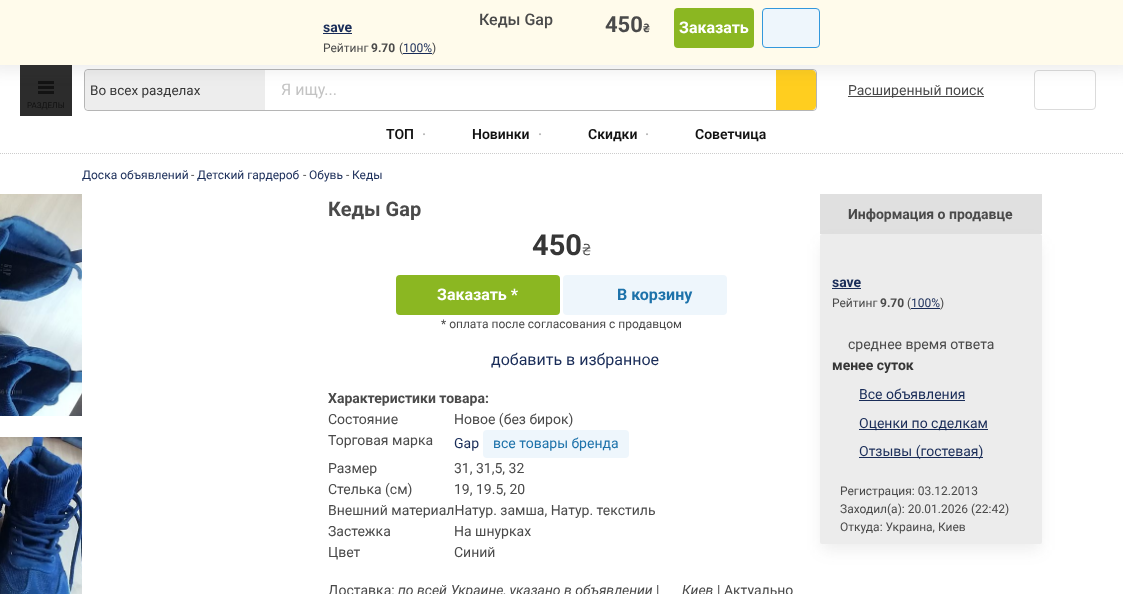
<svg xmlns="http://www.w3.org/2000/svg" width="1123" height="594">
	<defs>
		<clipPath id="clip1"><rect x="82" y="162" width="960" height="24" /></clipPath>
	</defs>
	<rect width="100%" height="100%" fill="#FFFFFF" />
	<rect x="20" y="65" width="52" height="51" fill="#2C2C2C" />
	<rect x="84.5" y="69.5" width="732" height="41" rx="3.5" fill="none" stroke="#B5B5B5" />
	<path d="M89 70H265V110H89C87 110 85 108 85 106V74C85 72 87 70 89 70Z" fill="#EDEDED" />
	<path d="M776 70H812C814 70 816 72 816 74V106C816 108 814 110 812 110H776Z" fill="#FFCE1F" />
	<rect x="1034.5" y="70.5" width="61" height="39" rx="3.5" fill="none" stroke="#DBDBDB" />
	<rect x="38" y="81" width="16" height="3" fill="#131313" />
	<rect x="38" y="86" width="16" height="3" fill="#131313" />
	<rect x="38" y="91" width="16" height="3" fill="#131313" />
	<rect x="-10" y="-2" width="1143" height="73" fill="#4A4A4A" fill-opacity="0.1" filter="blur(8px)" />
	<rect x="0" y="0" width="1123" height="65" fill="#FFFBEB" />
	<text x="323" y="32" font-family="Roboto" font-size="14" font-weight="700" fill="#192C58">save</text>
	<rect x="323" y="33" width="29" height="1" fill="#192C58" />
	<text x="323" y="52" font-family="Roboto" font-size="12" fill="#4A4A4A">Рейтинг</text>
	<text x="371" y="52" font-family="Roboto" font-size="12" font-weight="700" fill="#4A4A4A">9.70</text>
	<text x="399" y="52" font-family="Roboto" font-size="12" fill="#4A4A4A">(</text>
	<text x="403" y="52" font-family="Roboto" font-size="12" fill="#192C58">100%</text>
	<rect x="403" y="53" width="29" height="1" fill="#192C58" />
	<text x="432" y="52" font-family="Roboto" font-size="12" fill="#4A4A4A">)</text>
	<text x="479" y="25" font-family="Roboto" font-size="16" font-weight="500" fill="#4A4A4A">Кеды Gap</text>
	<text x="605" y="32" font-family="Roboto" font-size="22" font-weight="700" fill="#4A4A4A">450</text>
	<text x="643" y="32" font-family="Ubuntu" font-size="12" font-weight="700" fill="#4A4A4A">₴</text>
	<rect x="674" y="8" width="80" height="40" rx="4" fill="#8BB722" />
	<text x="679" y="33" font-family="Roboto" font-size="16" font-weight="700" fill="#FFFFFF">Заказать</text>
	<rect x="762.5" y="8.5" width="57" height="39" rx="3.5" fill="#EEF6FC" stroke="#3298DC" />
	<text x="90" y="95" font-family="Roboto" font-size="13.5" fill="#363636">Во всех разделах</text>
	<text x="281" y="95" font-family="Roboto" font-size="16" fill="#C3C3C3">Я ищу...</text>
	<rect x="848" y="96" width="136" height="1" fill="#4A4A4A" />
	<text x="848" y="95" font-family="Roboto" font-size="14" fill="#4A4A4A">Расширенный поиск</text>
	<text x="27" y="108" font-family="Roboto" font-size="8" fill="#121212">РАЗДЕЛЫ</text>
	<text x="386" y="139" font-family="Roboto" font-size="14" font-weight="600" fill="#121212">ТОП</text>
	<text x="422" y="139" font-family="Roboto" font-size="14" font-weight="600" fill="#B5B5B5">·</text>
	<text x="472" y="139" font-family="Roboto" font-size="14" font-weight="600" fill="#121212">Новинки</text>
	<text x="538" y="139" font-family="Roboto" font-size="14" font-weight="600" fill="#B5B5B5">·</text>
	<text x="588" y="139" font-family="Roboto" font-size="14" font-weight="600" fill="#121212">Скидки</text>
	<text x="645" y="139" font-family="Roboto" font-size="14" font-weight="600" fill="#B5B5B5">·</text>
	<text x="695" y="139" font-family="Roboto" font-size="14" font-weight="600" fill="#121212">Советчица</text>
	<path d="M0 153.5H1123" fill="none" stroke="#CCCCCC" stroke-dasharray="1 1" />
	<g clip-path="url(#clip1)">
		<text x="82" y="179" font-family="Roboto" font-size="12" fill="#192C58">Доска объявлений</text>
	</g>
	<text x="191" y="179" font-family="Roboto" font-size="12" fill="#4A4A4A">-</text>
	<text x="197" y="179" font-family="Roboto" font-size="12" fill="#192C58">Детский гардероб</text>
	<text x="303" y="179" font-family="Roboto" font-size="12" fill="#4A4A4A">-</text>
	<text x="309" y="179" font-family="Roboto" font-size="12" fill="#192C58">Обувь</text>
	<text x="346" y="179" font-family="Roboto" font-size="12" fill="#4A4A4A">-</text>
	<text x="352" y="179" font-family="Roboto" font-size="12" fill="#192C58">Кеды</text>
	<image x="0" y="194" width="82" height="222" href="assets/img1.png" />
	<image x="0" y="437" width="82" height="157" href="assets/img2.png" />
	<text x="328" y="216" font-family="Roboto" font-size="20" font-weight="700" fill="#4A4A4A">Кеды Gap</text>
	<text x="532" y="255" font-family="Roboto" font-size="29" font-weight="700" fill="#363636">450</text>
	<text x="582" y="255" font-family="Ubuntu" font-size="16" fill="#4A4A4A">₴</text>
	<rect x="396" y="275" width="164" height="40" rx="4" fill="#8BB722" />
	<text x="437" y="300" font-family="Roboto" font-size="16" font-weight="700" fill="#FFFFFF">Заказать *</text>
	<rect x="563" y="275" width="164" height="40" rx="4" fill="#EEF6FC" />
	<text x="617" y="300" font-family="Roboto" font-size="16" font-weight="700" fill="#1D72AA">В корзину</text>
	<text x="441" y="328" font-family="Roboto" font-size="12" fill="#4A4A4A">* оплата после согласования с продавцом</text>
	<text x="491" y="365" font-family="Roboto" font-size="16" fill="#192C58">добавить в избранное</text>
	<text x="328" y="403" font-family="Roboto" font-size="14" font-weight="700" fill="#4A4A4A">Характеристики товара:</text>
	<g font-family="Roboto" font-size="14" fill="#4A4A4A">
		<text x="328" y="424">Состояние</text>
		<text x="454" y="424">Новое (без бирок)</text>
		<text x="328" y="445">Торговая марка</text>
	</g>
	<text x="454" y="448" font-family="Roboto" font-size="14" fill="#192C58">Gap</text>
	<rect x="483" y="430" width="146" height="28" rx="4" fill="#EEF6FC" />
	<text x="493" y="448" font-family="Roboto" font-size="14" fill="#1D72AA">все товары бренда</text>
	<g font-family="Roboto" font-size="14" fill="#4A4A4A">
		<text x="328" y="473">Размер</text>
		<text x="454" y="473">31, 31,5, 32</text>
		<text x="328" y="494">Стелька (см)</text>
		<text x="454" y="494">19, 19.5, 20</text>
		<text x="328" y="515">Внешний материалНатур. замша, Натур. текстиль</text>
		<text x="328" y="536">Застежка</text>
		<text x="454" y="536">На шнурках</text>
		<text x="328" y="557">Цвет</text>
		<text x="454" y="557">Синий</text>
		<text x="328" y="595">Доставка:</text>
	</g>
	<text x="398" y="595" font-family="Roboto" font-size="14" font-style="italic" fill="#4A4A4A">по всей Украине, указано в объявлении</text>
	<text x="656" y="595" font-family="Roboto" font-size="14" fill="#4A4A4A">|</text>
	<text x="682" y="595" font-family="Roboto" font-size="14" font-style="italic" fill="#4A4A4A">Киев</text>
	<text x="717" y="595" font-family="Roboto" font-size="14" fill="#4A4A4A">| Актуально</text>
	<rect x="820" y="194" width="222" height="40" fill="#E0E0E0" />
	<rect x="822" y="244" width="218" height="306" fill="#4A4A4A" fill-opacity="0.1" filter="blur(8px)" />
	<text x="848" y="219" font-family="Roboto" font-size="14" font-weight="700" fill="#4A4A4A">Информация о продавце</text>
	<rect x="820" y="234" width="222" height="310" rx="2" fill="#ECECEC" />
	<text x="832" y="287" font-family="Roboto" font-size="14" font-weight="700" fill="#192C58">save</text>
	<rect x="832" y="288" width="29" height="1" fill="#192C58" />
	<text x="832" y="307" font-family="Roboto" font-size="12" fill="#4A4A4A">Рейтинг</text>
	<text x="880" y="307" font-family="Roboto" font-size="12" font-weight="700" fill="#4A4A4A">9.70</text>
	<text x="907" y="307" font-family="Roboto" font-size="12" fill="#4A4A4A">(</text>
	<text x="911" y="307" font-family="Roboto" font-size="12" fill="#192C58">100%</text>
	<rect x="911" y="308" width="29" height="1" fill="#192C58" />
	<text x="940" y="307" font-family="Roboto" font-size="12" fill="#4A4A4A">)</text>
	<text x="848" y="349" font-family="Roboto" font-size="14" fill="#4A4A4A">среднее время ответа</text>
	<text x="832" y="370" font-family="Roboto" font-size="14" font-weight="700" fill="#363636">менее суток</text>
	<text x="859" y="399" font-family="Roboto" font-size="14" fill="#192C58">Все объявления</text>
	<rect x="859" y="400" width="106" height="1" fill="#192C58" />
	<rect x="859" y="429" width="129" height="1" fill="#192C58" />
	<text x="859" y="428" font-family="Roboto" font-size="14" fill="#192C58">Оценки по сделкам</text>
	<rect x="859" y="457" width="124" height="1" fill="#192C58" />
	<text x="859" y="456" font-family="Roboto" font-size="14" fill="#192C58">Отзывы (гостевая)</text>
	<g font-family="Roboto" font-size="12" fill="#4A4A4A">
		<text x="840" y="495">Регистрация: 03.12.2013</text>
		<text x="840" y="513">Заходил(а): 20.01.2026 (22:42)</text>
		<text x="840" y="531">Откуда: Украина, Киев</text>
	</g>
</svg>
